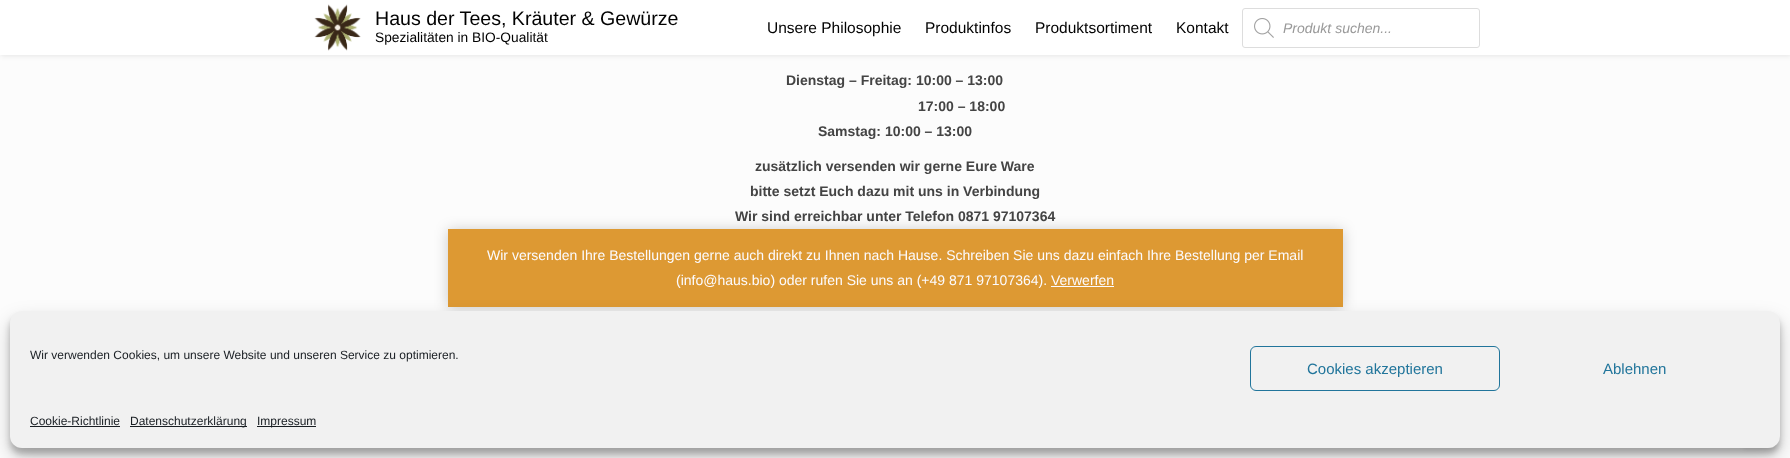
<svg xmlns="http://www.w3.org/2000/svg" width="1790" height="458">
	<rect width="100%" height="100%" fill="#FCFCFC" />
	<rect x="1" y="1" width="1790" height="55" fill="#191919" fill-opacity="0.1" filter="blur(2.5px)" />
	<rect x="0" y="0" width="1790" height="55" fill="#FFFFFF" />
	<image x="314" y="4" width="47" height="47" href="assets/img1.png" />
	<text x="375" y="25" font-family="Liberation Sans" font-size="19.6" fill="#020202">Haus der Tees, Kräuter &amp; Gewürze</text>
	<text x="375" y="42" font-family="Liberation Sans" font-size="13.75" fill="#020202">Spezialitäten in BIO-Qualität</text>
	<g font-family="Liberation Sans" font-size="15.5" fill="#020202">
		<text x="767" y="33">Unsere Philosophie</text>
		<text x="925" y="33">Produktinfos</text>
		<text x="1035" y="33">Produktsortiment</text>
		<text x="1176" y="33">Kontakt</text>
	</g>
	<rect x="1242.5" y="8.5" width="237" height="39" rx="2.5" fill="none" stroke="#DDDDDD" />
	<image x="1254" y="18" width="20" height="20" href="assets/img2.png" />
	<text x="1283" y="33" font-family="Liberation Sans" font-size="14" font-style="italic" fill="#999999">Produkt suchen...</text>
	<g font-family="Liberation Sans" font-size="14" font-weight="700" fill="#444444">
		<text x="786" y="85">Dienstag – Freitag: 10:00 – 13:00</text>
		<text x="918" y="111">17:00 – 18:00</text>
		<text x="818" y="136">Samstag: 10:00 – 13:00</text>
		<text x="755" y="171">zusätzlich versenden wir gerne Eure Ware</text>
		<text x="750" y="196">bitte setzt Euch dazu mit uns in Verbindung</text>
		<text x="735" y="221">Wir sind erreichbar unter Telefon 0871 97107364</text>
	</g>
	<rect x="1742" y="415" width="34" height="34" rx="4" fill="#191919" fill-opacity="0.1" filter="blur(2.5px)" />
	<rect x="1741" y="414" width="34" height="34" rx="4" fill="#FFFFFF" />
	<rect x="448" y="230" width="895" height="78" fill="#000000" fill-opacity="0.2" filter="blur(7px)" />
	<rect x="448" y="229" width="895" height="78" fill="#DD9933" />
	<g font-family="Liberation Sans" font-size="14" fill="#FCFBFE">
		<text x="487" y="260">Wir versenden Ihre Bestellungen gerne auch direkt zu Ihnen nach Hause. Schreiben Sie uns dazu einfach Ihre Bestellung per Email</text>
		<text x="676" y="285">(info@haus.bio) oder rufen Sie uns an (+49 871 97107364). Verwerfen</text>
	</g>
	<rect x="1051" y="286" width="63" height="1" fill="#FCFBFE" />
	<rect x="10" y="317" width="1770" height="137" rx="12" fill="#000000" fill-opacity="0.23" filter="blur(3px)" />
	<rect x="10" y="321" width="1770" height="137" rx="12" fill="#000000" fill-opacity="0.19" filter="blur(10px)" />
	<rect x="10" y="311" width="1770" height="137" rx="12" fill="#F1F1F1" />
	<text x="30" y="359" font-family="Liberation Sans" font-size="12" fill="#191E23">Wir verwenden Cookies, um unsere Website und unseren Service zu optimieren.</text>
	<rect x="1250.5" y="346.5" width="249" height="44" rx="5.5" fill="none" stroke="#21759B" />
	<g font-family="Liberation Sans" font-size="15" fill="#21759B">
		<text x="1307" y="374">Cookies akzeptieren</text>
		<text x="1603" y="374">Ablehnen</text>
	</g>
	<text x="30" y="425" font-family="Liberation Sans" font-size="12" fill="#191E23">Cookie-Richtlinie</text>
	<rect x="30" y="426" width="90" height="1" fill="#191E23" />
	<rect x="130" y="426" width="117" height="1" fill="#191E23" />
	<text x="130" y="425" font-family="Liberation Sans" font-size="12" fill="#191E23">Datenschutzerklärung</text>
	<rect x="257" y="426" width="59" height="1" fill="#191E23" />
	<text x="257" y="425" font-family="Liberation Sans" font-size="12" fill="#191E23">Impressum</text>
</svg>
